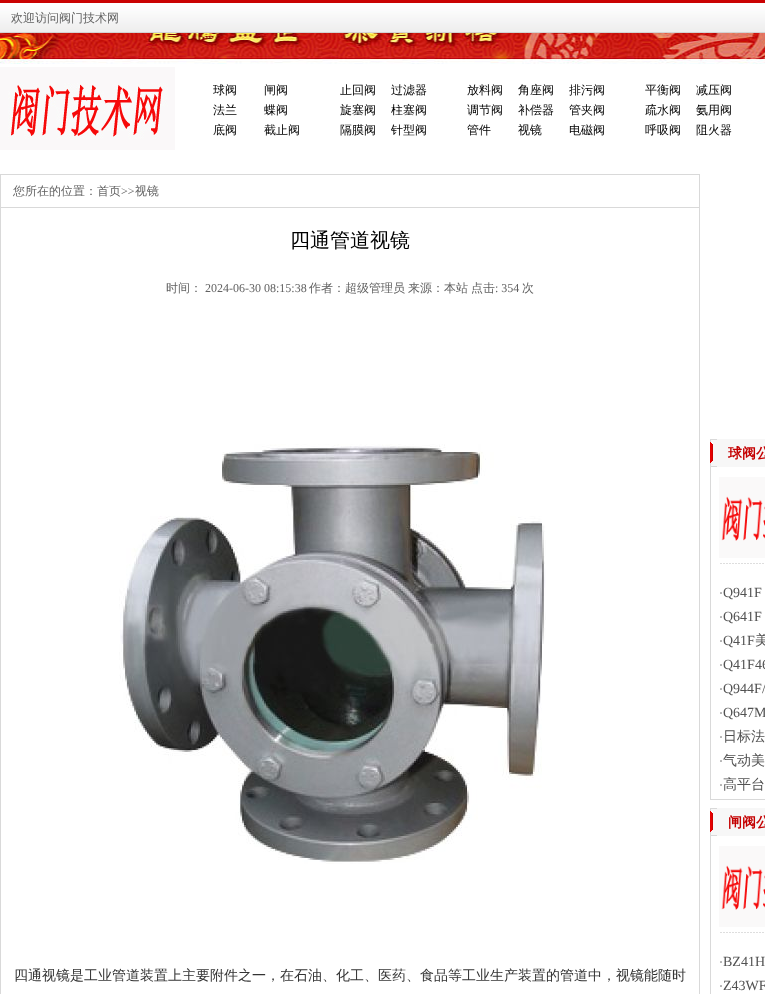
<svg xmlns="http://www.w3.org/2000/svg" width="765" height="994">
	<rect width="100%" height="100%" fill="#FFFFFF" />
	<image x="0" y="33" width="765" height="31" href="assets/img1.png" />
	<image x="0" y="3" width="765" height="30" href="assets/img2.png" />
	<rect x="0" y="0" width="765" height="3" fill="#CA0202" />
	<text x="11" y="22" font-family="WenQuanYi Zen Hei" font-size="12" font-weight="500" fill="#626262">欢迎访问阀门技术网</text>
	<image x="0" y="67" width="175" height="83" href="assets/img3.png" />
	<g font-family="WenQuanYi Zen Hei" font-size="12" font-weight="500" fill="#000000">
		<text x="213" y="94">球阀</text>
		<text x="264" y="94">闸阀</text>
		<text x="213" y="114">法兰</text>
		<text x="264" y="114">蝶阀</text>
		<text x="213" y="134">底阀</text>
		<text x="264" y="134">截止阀</text>
		<text x="340" y="94">止回阀</text>
		<text x="391" y="94">过滤器</text>
		<text x="340" y="114">旋塞阀</text>
		<text x="391" y="114">柱塞阀</text>
		<text x="340" y="134">隔膜阀</text>
		<text x="391" y="134">针型阀</text>
		<text x="467" y="94">放料阀</text>
		<text x="518" y="94">角座阀</text>
		<text x="569" y="94">排污阀</text>
		<text x="467" y="114">调节阀</text>
		<text x="518" y="114">补偿器</text>
		<text x="569" y="114">管夹阀</text>
		<text x="467" y="134">管件</text>
		<text x="518" y="134">视镜</text>
		<text x="569" y="134">电磁阀</text>
		<text x="645" y="94">平衡阀</text>
		<text x="696" y="94">减压阀</text>
		<text x="645" y="114">疏水阀</text>
		<text x="696" y="114">氨用阀</text>
		<text x="645" y="134">呼吸阀</text>
		<text x="696" y="134">阻火器</text>
	</g>
	<rect x="0.5" y="174.5" width="699" height="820" fill="none" stroke="#D9D9D9" />
	<rect x="1" y="207" width="698" height="1" fill="#D9D9D9" />
	<text x="13" y="195" font-family="WenQuanYi Zen Hei" font-size="12" font-weight="500" fill="#626262">您所在的位置：首页</text>
	<text x="121" y="195" font-family="Liberation Serif" font-size="12" fill="#626262">&gt;&gt;</text>
	<text x="135" y="195" font-family="WenQuanYi Zen Hei" font-size="12" font-weight="500" fill="#626262">视镜</text>
	<text x="290" y="247" font-family="WenQuanYi Zen Hei" font-size="20" font-weight="500" fill="#000000">四通管道视镜</text>
	<text x="166" y="292" font-family="WenQuanYi Zen Hei" font-size="12" font-weight="500" fill="#626262">时间：</text>
	<text x="205" y="292" font-family="Liberation Serif" font-size="12" fill="#626262">2024-06-30 08:15:38</text>
	<g font-family="WenQuanYi Zen Hei" font-size="12" font-weight="500" fill="#626262">
		<text x="309" y="292">作者：超级管理员</text>
		<text x="408" y="292">来源：本站</text>
		<text x="471" y="292">点击</text>
	</g>
	<text x="495" y="292" font-family="Liberation Serif" font-size="12" fill="#626262">: 354</text>
	<text x="522" y="292" font-family="WenQuanYi Zen Hei" font-size="12" font-weight="500" fill="#626262">次</text>
	<image x="119" y="444" width="427" height="420" href="assets/img4.png" />
	<text x="14" y="980" font-family="WenQuanYi Zen Hei" font-size="14" font-weight="500" fill="#333333">四通视镜是工业管道装置上主要附件之一，在石油、化工、医药、食品等工业生产装置的管道中，视镜能随时</text>
	<rect x="717" y="439" width="48" height="28" fill="#F7F7F7" />
	<image x="710" y="439" width="7" height="28" href="assets/img5.png" />
	<text x="728" y="458" font-family="WenQuanYi Zen Hei" font-size="14" font-weight="700" fill="#C40001">球阀公</text>
	<rect x="710" y="799" width="55" height="1" fill="#D9D9D9" />
	<rect x="710" y="467" width="1" height="333" fill="#D9D9D9" />
	<image x="720" y="563" width="44" height="1" href="assets/img6.png" />
	<image x="719" y="477" width="46" height="81" href="assets/img7.png" />
	<text x="719" y="597" font-family="Liberation Serif" font-size="12" fill="#525252">·</text>
	<text x="723" y="597" font-family="Liberation Serif" font-size="14" fill="#525252">Q941F</text>
	<text x="719" y="621" font-family="Liberation Serif" font-size="12" fill="#525252">·</text>
	<text x="723" y="621" font-family="Liberation Serif" font-size="14" fill="#525252">Q641F</text>
	<text x="719" y="645" font-family="Liberation Serif" font-size="12" fill="#525252">·</text>
	<text x="723" y="645" font-family="Liberation Serif" font-size="14" fill="#525252">Q41F</text>
	<text x="755" y="645" font-family="WenQuanYi Zen Hei" font-size="14" font-weight="500" fill="#525252">美</text>
	<text x="719" y="669" font-family="Liberation Serif" font-size="12" fill="#525252">·</text>
	<text x="723" y="669" font-family="Liberation Serif" font-size="14" fill="#525252">Q41F46</text>
	<text x="719" y="693" font-family="Liberation Serif" font-size="12" fill="#525252">·</text>
	<text x="723" y="693" font-family="Liberation Serif" font-size="14" fill="#525252">Q944F/</text>
	<text x="719" y="717" font-family="Liberation Serif" font-size="12" fill="#525252">·</text>
	<text x="723" y="717" font-family="Liberation Serif" font-size="14" fill="#525252">Q647M</text>
	<text x="719" y="741" font-family="Liberation Serif" font-size="12" fill="#525252">·</text>
	<text x="723" y="741" font-family="WenQuanYi Zen Hei" font-size="14" font-weight="500" fill="#525252">日标法</text>
	<text x="719" y="765" font-family="Liberation Serif" font-size="12" fill="#525252">·</text>
	<text x="723" y="765" font-family="WenQuanYi Zen Hei" font-size="14" font-weight="500" fill="#525252">气动美</text>
	<text x="719" y="789" font-family="Liberation Serif" font-size="12" fill="#525252">·</text>
	<text x="723" y="789" font-family="WenQuanYi Zen Hei" font-size="14" font-weight="500" fill="#525252">高平台</text>
	<rect x="717" y="808" width="48" height="28" fill="#F7F7F7" />
	<image x="710" y="808" width="7" height="28" href="assets/img5.png" />
	<text x="728" y="827" font-family="WenQuanYi Zen Hei" font-size="14" font-weight="700" fill="#C40001">闸阀公</text>
	<rect x="710" y="836" width="1" height="158" fill="#D9D9D9" />
	<image x="720" y="932" width="44" height="1" href="assets/img6.png" />
	<image x="719" y="846" width="46" height="81" href="assets/img7.png" />
	<text x="719" y="966" font-family="Liberation Serif" font-size="12" fill="#525252">·</text>
	<text x="723" y="966" font-family="Liberation Serif" font-size="14" fill="#525252">BZ41H</text>
	<text x="719" y="990" font-family="Liberation Serif" font-size="12" fill="#525252">·</text>
	<text x="723" y="990" font-family="Liberation Serif" font-size="14" fill="#525252">Z43WF</text>
</svg>
